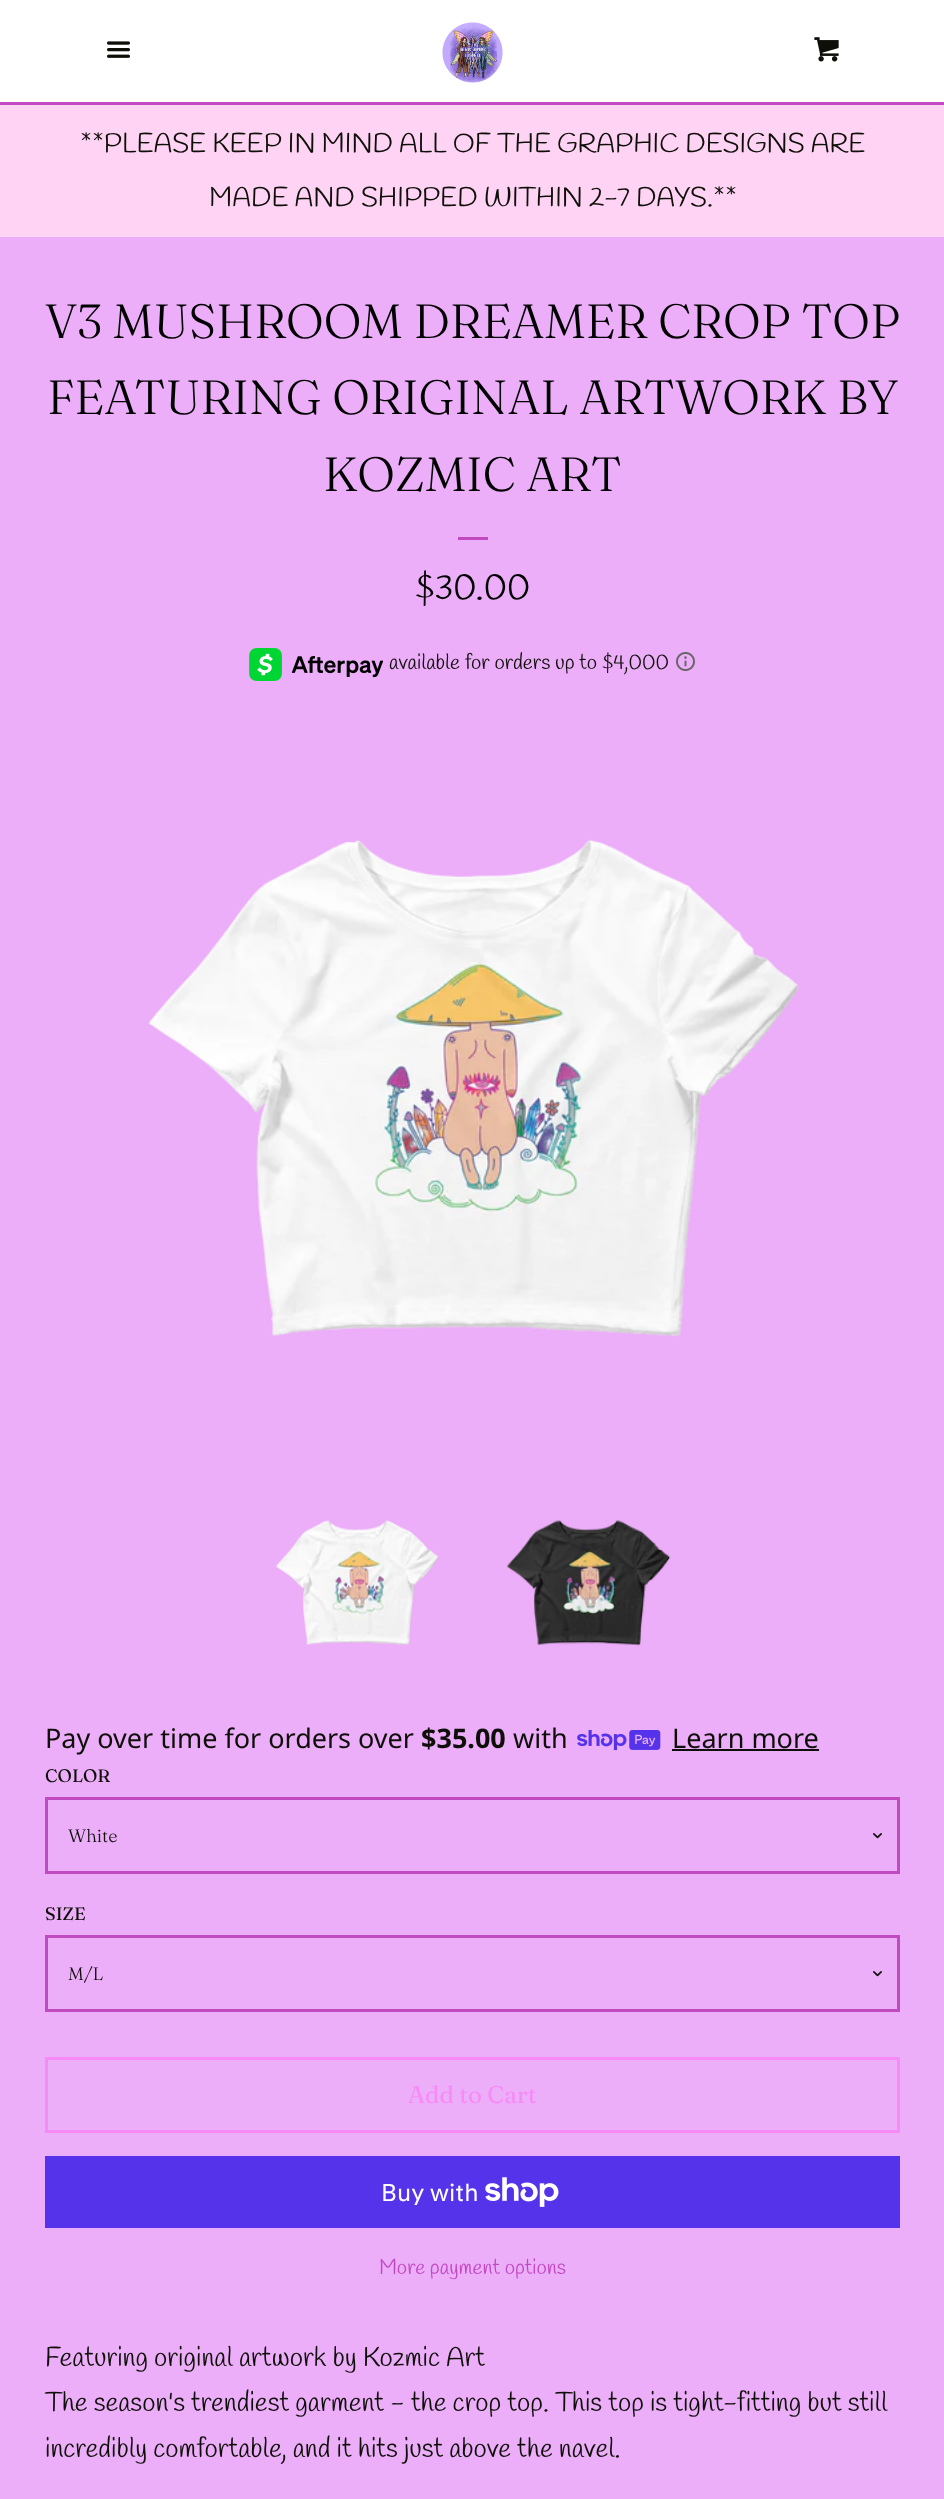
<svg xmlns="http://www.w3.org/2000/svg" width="944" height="2499">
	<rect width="100%" height="100%" fill="#FFFFFF" />
	<rect x="0" y="102" width="944" height="3" fill="#C14AC0" />
	<image x="107" y="41" width="23" height="17" href="assets/img1.png" />
	<image x="442" y="22" width="61" height="61" href="assets/img2.png" />
	<image x="814" y="37" width="25" height="25" href="assets/img3.png" />
	<rect x="0" y="237" width="944" height="2262" fill="#ECADF9" />
	<rect x="0" y="105" width="944" height="132" fill="#FED3F4" />
	<g font-family="Handlee" font-size="27" fill="#0F0F09">
		<text x="80" y="152">**PLEASE KEEP IN MIND ALL OF THE GRAPHIC DESIGNS ARE</text>
		<text x="209" y="206">MADE AND SHIPPED WITHIN 2-7 DAYS.**</text>
	</g>
	<g font-family="'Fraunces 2'" font-size="48" font-weight="300" fill="#000000">
		<text x="45" y="338">V3 MUSHROOM DREAMER CROP TOP</text>
		<text x="47" y="414">FEATURING ORIGINAL ARTWORK BY</text>
		<text x="323" y="491">KOZMIC ART</text>
	</g>
	<rect x="458" y="537" width="30" height="3" fill="#C14AC0" />
	<text x="415" y="599" font-family="Handlee" font-size="36" fill="#000000">$30.00</text>
	<image x="249" y="648" width="135" height="33" href="assets/img4.png" />
	<text x="389" y="669" font-family="Handlee" font-size="21" fill="#0F0F09">available for orders up to $4,000</text>
	<image x="676" y="652" width="19" height="19" href="assets/img5.png" />
	<image x="148" y="839" width="651" height="498" href="assets/img6.png" />
	<image x="276" y="1520" width="163" height="125" href="assets/img7.png" />
	<image x="507" y="1520" width="164" height="126" href="assets/img8.png" />
	<text x="45" y="1748" font-family="Noto Sans" font-size="27" fill="#0F0F09">Pay over time for orders over</text>
	<text x="421" y="1748" font-family="Noto Sans" font-size="27" font-weight="700" fill="#0F0F09">$35.00</text>
	<text x="513" y="1748" font-family="Noto Sans" font-size="27" fill="#0F0F09">with</text>
	<image x="577" y="1730" width="84" height="21" href="assets/img9.png" />
	<text x="672" y="1748" font-family="Noto Sans" font-size="27" fill="#0F0F09">Learn more</text>
	<rect x="672" y="1749" width="147" height="2" fill="#0F0F09" />
	<text x="45" y="1782" font-family="'Fraunces 2'" font-size="18" fill="#0F0F09">COLOR</text>
	<image x="873" y="1833" width="9" height="6" href="assets/img10.png" />
	<rect x="46.5" y="1798.5" width="852" height="74" fill="none" stroke="#C14AC0" stroke-width="3" />
	<text x="68" y="1842" font-family="Fraunces" font-size="18" font-weight="300" fill="#0F0F09">White</text>
	<text x="45" y="1920" font-family="'Fraunces 2'" font-size="18" fill="#0F0F09">SIZE</text>
	<image x="873" y="1971" width="9" height="6" href="assets/img10.png" />
	<rect x="46.5" y="1936.5" width="852" height="74" fill="none" stroke="#C14AC0" stroke-width="3" />
	<text x="68" y="1980" font-family="Fraunces" font-size="18" font-weight="300" fill="#0F0F09">M/L</text>
	<rect x="46.5" y="2058.5" width="852" height="73" fill="none" stroke="#F78AF6" stroke-width="3" />
	<text x="408" y="2103" font-family="Fraunces" font-size="24" fill="#F78AF6">Add to Cart</text>
	<rect x="45" y="2156" width="855" height="72" fill="#5433EB" />
	<text x="381" y="2201" font-family="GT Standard" font-size="24" fill="#FFFFFF">Buy with</text>
	<image x="485" y="2177" width="74" height="30" href="assets/img11.png" />
	<text x="379" y="2274" font-family="Handlee" font-size="21" fill="#C14AC0">More payment options</text>
	<g font-family="Handlee" font-size="27" fill="#0F0F09">
		<text x="45" y="2366">Featuring original artwork by Kozmic Art</text>
		<text x="45" y="2411">The season's trendiest garment - the crop top. This top is tight-fitting but still</text>
		<text x="45" y="2457">incredibly comfortable, and it hits just above the navel.</text>
	</g>
</svg>
